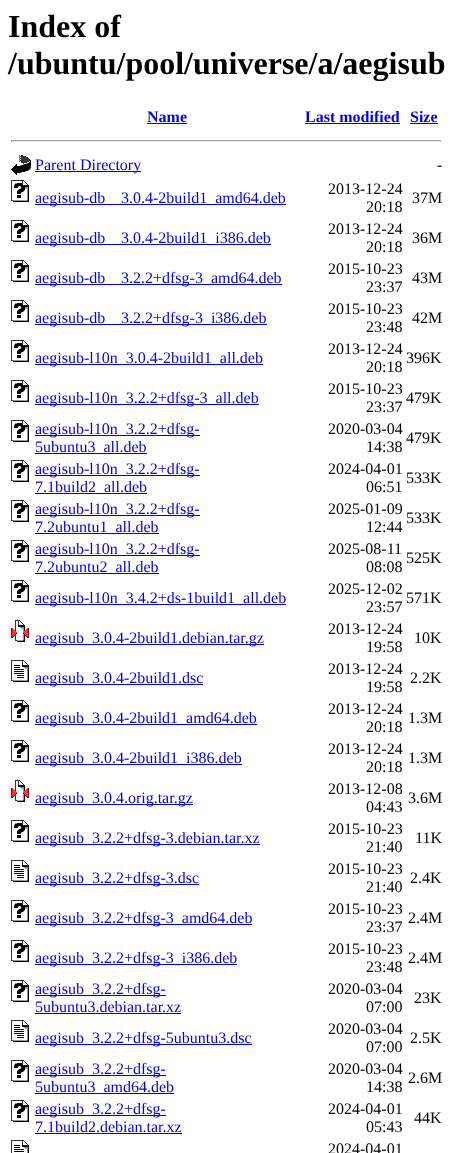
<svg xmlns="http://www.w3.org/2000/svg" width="453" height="1153">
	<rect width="100%" height="100%" fill="#FFFFFF" />
	<g font-family="Liberation Serif" font-size="32" font-weight="700" fill="#000000">
		<text x="8" y="37">Index of</text>
		<text x="8" y="74">/ubuntu/pool/universe/a/aegisub</text>
	</g>
	<text x="147" y="122" font-family="Liberation Serif" font-size="16" font-weight="700" fill="#0000EE">Name</text>
	<rect x="147" y="123" width="40" height="1" fill="#0000EE" />
	<text x="305" y="122" font-family="Liberation Serif" font-size="16" font-weight="700" fill="#0000EE">Last modified</text>
	<rect x="305" y="123" width="95" height="1" fill="#0000EE" />
	<text x="410" y="122" font-family="Liberation Serif" font-size="16" font-weight="700" fill="#0000EE">Size</text>
	<rect x="410" y="123" width="28" height="1" fill="#0000EE" />
	<rect x="11" y="140" width="431" height="1" fill="#9F9F9F" />
	<rect x="441" y="140" width="1" height="2" fill="#EEEEEE" />
	<rect x="11" y="141" width="431" height="1" fill="#EEEEEE" />
	<rect x="11" y="140" width="1" height="2" fill="#9F9F9F" />
	<image x="11" y="155" width="20" height="20" href="assets/img1.png" />
	<rect x="35" y="171" width="106" height="1" fill="#0000EE" />
	<text x="35" y="170" font-family="Liberation Serif" font-size="16" fill="#0000EE">Parent Directory</text>
	<text x="437" y="170" font-family="Liberation Serif" font-size="16" fill="#000000">-</text>
	<image x="11" y="180" width="18" height="22" href="assets/img2.png" />
	<rect x="35" y="204" width="251" height="1" fill="#0000EE" />
	<g font-family="Liberation Serif" font-size="16" fill="#0000EE">
		<text x="35" y="203">aegisub-db</text>
		<text x="121" y="203">3.0.4-2build1_amd64.deb</text>
	</g>
	<g font-family="Liberation Serif" font-size="16" fill="#000000">
		<text x="328" y="194">2013-12-24</text>
		<text x="366" y="212">20:18</text>
		<text x="412" y="203">37M</text>
	</g>
	<image x="11" y="220" width="18" height="22" href="assets/img2.png" />
	<rect x="35" y="244" width="236" height="1" fill="#0000EE" />
	<g font-family="Liberation Serif" font-size="16" fill="#0000EE">
		<text x="35" y="243">aegisub-db</text>
		<text x="121" y="243">3.0.4-2build1_i386.deb</text>
	</g>
	<g font-family="Liberation Serif" font-size="16" fill="#000000">
		<text x="328" y="234">2013-12-24</text>
		<text x="366" y="252">20:18</text>
		<text x="412" y="243">36M</text>
	</g>
	<image x="11" y="260" width="18" height="22" href="assets/img2.png" />
	<rect x="35" y="284" width="247" height="1" fill="#0000EE" />
	<g font-family="Liberation Serif" font-size="16" fill="#0000EE">
		<text x="35" y="283">aegisub-db</text>
		<text x="121" y="283">3.2.2+dfsg-3_amd64.deb</text>
	</g>
	<g font-family="Liberation Serif" font-size="16" fill="#000000">
		<text x="328" y="274">2015-10-23</text>
		<text x="366" y="292">23:37</text>
		<text x="412" y="283">43M</text>
	</g>
	<image x="11" y="300" width="18" height="22" href="assets/img2.png" />
	<rect x="35" y="324" width="232" height="1" fill="#0000EE" />
	<g font-family="Liberation Serif" font-size="16" fill="#0000EE">
		<text x="35" y="323">aegisub-db</text>
		<text x="121" y="323">3.2.2+dfsg-3_i386.deb</text>
	</g>
	<g font-family="Liberation Serif" font-size="16" fill="#000000">
		<text x="328" y="314">2015-10-23</text>
		<text x="366" y="332">23:48</text>
		<text x="412" y="323">42M</text>
	</g>
	<image x="11" y="340" width="18" height="22" href="assets/img2.png" />
	<rect x="35" y="364" width="228" height="1" fill="#0000EE" />
	<text x="35" y="363" font-family="Liberation Serif" font-size="16" fill="#0000EE">aegisub-l10n_3.0.4-2build1_all.deb</text>
	<g font-family="Liberation Serif" font-size="16" fill="#000000">
		<text x="328" y="354">2013-12-24</text>
		<text x="366" y="372">20:18</text>
		<text x="406" y="363">396K</text>
	</g>
	<image x="11" y="380" width="18" height="22" href="assets/img2.png" />
	<rect x="35" y="404" width="224" height="1" fill="#0000EE" />
	<text x="35" y="403" font-family="Liberation Serif" font-size="16" fill="#0000EE">aegisub-l10n_3.2.2+dfsg-3_all.deb</text>
	<g font-family="Liberation Serif" font-size="16" fill="#000000">
		<text x="328" y="394">2015-10-23</text>
		<text x="366" y="412">23:37</text>
		<text x="406" y="403">479K</text>
	</g>
	<image x="11" y="420" width="18" height="22" href="assets/img2.png" />
	<rect x="35" y="435" width="165" height="1" fill="#0000EE" />
	<text x="35" y="434" font-family="Liberation Serif" font-size="16" fill="#0000EE">aegisub-l10n_3.2.2+dfsg-</text>
	<rect x="35" y="453" width="112" height="1" fill="#0000EE" />
	<text x="35" y="452" font-family="Liberation Serif" font-size="16" fill="#0000EE">5ubuntu3_all.deb</text>
	<g font-family="Liberation Serif" font-size="16" fill="#000000">
		<text x="328" y="434">2020-03-04</text>
		<text x="366" y="452">14:38</text>
		<text x="406" y="443">479K</text>
	</g>
	<image x="11" y="460" width="18" height="22" href="assets/img2.png" />
	<rect x="35" y="475" width="165" height="1" fill="#0000EE" />
	<text x="35" y="474" font-family="Liberation Serif" font-size="16" fill="#0000EE">aegisub-l10n_3.2.2+dfsg-</text>
	<rect x="35" y="493" width="112" height="1" fill="#0000EE" />
	<text x="35" y="492" font-family="Liberation Serif" font-size="16" fill="#0000EE">7.1build2_all.deb</text>
	<g font-family="Liberation Serif" font-size="16" fill="#000000">
		<text x="328" y="474">2024-04-01</text>
		<text x="366" y="492">06:51</text>
		<text x="406" y="483">533K</text>
	</g>
	<image x="11" y="500" width="18" height="22" href="assets/img2.png" />
	<rect x="35" y="515" width="165" height="1" fill="#0000EE" />
	<text x="35" y="514" font-family="Liberation Serif" font-size="16" fill="#0000EE">aegisub-l10n_3.2.2+dfsg-</text>
	<rect x="35" y="533" width="124" height="1" fill="#0000EE" />
	<text x="35" y="532" font-family="Liberation Serif" font-size="16" fill="#0000EE">7.2ubuntu1_all.deb</text>
	<g font-family="Liberation Serif" font-size="16" fill="#000000">
		<text x="328" y="514">2025-01-09</text>
		<text x="366" y="532">12:44</text>
		<text x="406" y="523">533K</text>
	</g>
	<image x="11" y="540" width="18" height="22" href="assets/img2.png" />
	<rect x="35" y="555" width="165" height="1" fill="#0000EE" />
	<text x="35" y="554" font-family="Liberation Serif" font-size="16" fill="#0000EE">aegisub-l10n_3.2.2+dfsg-</text>
	<rect x="35" y="573" width="124" height="1" fill="#0000EE" />
	<text x="35" y="572" font-family="Liberation Serif" font-size="16" fill="#0000EE">7.2ubuntu2_all.deb</text>
	<g font-family="Liberation Serif" font-size="16" fill="#000000">
		<text x="328" y="554">2025-08-11</text>
		<text x="366" y="572">08:08</text>
		<text x="406" y="563">525K</text>
	</g>
	<image x="11" y="580" width="18" height="22" href="assets/img2.png" />
	<rect x="35" y="604" width="251" height="1" fill="#0000EE" />
	<text x="35" y="603" font-family="Liberation Serif" font-size="16" fill="#0000EE">aegisub-l10n_3.4.2+ds-1build1_all.deb</text>
	<g font-family="Liberation Serif" font-size="16" fill="#000000">
		<text x="328" y="594">2025-12-02</text>
		<text x="366" y="612">23:57</text>
		<text x="406" y="603">571K</text>
	</g>
	<image x="11" y="620" width="18" height="22" href="assets/img3.png" />
	<rect x="35" y="644" width="229" height="1" fill="#0000EE" />
	<text x="35" y="643" font-family="Liberation Serif" font-size="16" fill="#0000EE">aegisub_3.0.4-2build1.debian.tar.gz</text>
	<g font-family="Liberation Serif" font-size="16" fill="#000000">
		<text x="328" y="634">2013-12-24</text>
		<text x="366" y="652">19:58</text>
		<text x="414" y="643">10K</text>
	</g>
	<image x="11" y="660" width="18" height="22" href="assets/img4.png" />
	<rect x="35" y="684" width="168" height="1" fill="#0000EE" />
	<text x="35" y="683" font-family="Liberation Serif" font-size="16" fill="#0000EE">aegisub_3.0.4-2build1.dsc</text>
	<g font-family="Liberation Serif" font-size="16" fill="#000000">
		<text x="328" y="674">2013-12-24</text>
		<text x="366" y="692">19:58</text>
		<text x="410" y="683">2.2K</text>
	</g>
	<image x="11" y="700" width="18" height="22" href="assets/img2.png" />
	<rect x="35" y="724" width="222" height="1" fill="#0000EE" />
	<text x="35" y="723" font-family="Liberation Serif" font-size="16" fill="#0000EE">aegisub_3.0.4-2build1_amd64.deb</text>
	<g font-family="Liberation Serif" font-size="16" fill="#000000">
		<text x="328" y="714">2013-12-24</text>
		<text x="366" y="732">20:18</text>
		<text x="408" y="723">1.3M</text>
	</g>
	<image x="11" y="740" width="18" height="22" href="assets/img2.png" />
	<rect x="35" y="764" width="207" height="1" fill="#0000EE" />
	<text x="35" y="763" font-family="Liberation Serif" font-size="16" fill="#0000EE">aegisub_3.0.4-2build1_i386.deb</text>
	<g font-family="Liberation Serif" font-size="16" fill="#000000">
		<text x="328" y="754">2013-12-24</text>
		<text x="366" y="772">20:18</text>
		<text x="408" y="763">1.3M</text>
	</g>
	<image x="11" y="780" width="18" height="22" href="assets/img3.png" />
	<rect x="35" y="804" width="158" height="1" fill="#0000EE" />
	<text x="35" y="803" font-family="Liberation Serif" font-size="16" fill="#0000EE">aegisub_3.0.4.orig.tar.gz</text>
	<g font-family="Liberation Serif" font-size="16" fill="#000000">
		<text x="328" y="794">2013-12-08</text>
		<text x="366" y="812">04:43</text>
		<text x="408" y="803">3.6M</text>
	</g>
	<image x="11" y="820" width="18" height="22" href="assets/img2.png" />
	<rect x="35" y="844" width="225" height="1" fill="#0000EE" />
	<text x="35" y="843" font-family="Liberation Serif" font-size="16" fill="#0000EE">aegisub_3.2.2+dfsg-3.debian.tar.xz</text>
	<g font-family="Liberation Serif" font-size="16" fill="#000000">
		<text x="328" y="834">2015-10-23</text>
		<text x="366" y="852">21:40</text>
		<text x="415" y="843">11K</text>
	</g>
	<image x="11" y="860" width="18" height="22" href="assets/img4.png" />
	<rect x="35" y="884" width="164" height="1" fill="#0000EE" />
	<text x="35" y="883" font-family="Liberation Serif" font-size="16" fill="#0000EE">aegisub_3.2.2+dfsg-3.dsc</text>
	<g font-family="Liberation Serif" font-size="16" fill="#000000">
		<text x="328" y="874">2015-10-23</text>
		<text x="366" y="892">21:40</text>
		<text x="410" y="883">2.4K</text>
	</g>
	<image x="11" y="900" width="18" height="22" href="assets/img2.png" />
	<rect x="35" y="924" width="217" height="1" fill="#0000EE" />
	<text x="35" y="923" font-family="Liberation Serif" font-size="16" fill="#0000EE">aegisub_3.2.2+dfsg-3_amd64.deb</text>
	<g font-family="Liberation Serif" font-size="16" fill="#000000">
		<text x="328" y="914">2015-10-23</text>
		<text x="366" y="932">23:37</text>
		<text x="408" y="923">2.4M</text>
	</g>
	<image x="11" y="940" width="18" height="22" href="assets/img2.png" />
	<rect x="35" y="964" width="202" height="1" fill="#0000EE" />
	<text x="35" y="963" font-family="Liberation Serif" font-size="16" fill="#0000EE">aegisub_3.2.2+dfsg-3_i386.deb</text>
	<g font-family="Liberation Serif" font-size="16" fill="#000000">
		<text x="328" y="954">2015-10-23</text>
		<text x="366" y="972">23:48</text>
		<text x="408" y="963">2.4M</text>
	</g>
	<image x="11" y="980" width="18" height="22" href="assets/img2.png" />
	<rect x="35" y="995" width="131" height="1" fill="#0000EE" />
	<g font-family="Liberation Serif" font-size="16" fill="#0000EE">
		<text x="35" y="994">aegisub_3.2.2+dfsg-</text>
		<text x="35" y="1012">5ubuntu3.debian.tar.xz</text>
	</g>
	<rect x="35" y="1013" width="146" height="1" fill="#0000EE" />
	<g font-family="Liberation Serif" font-size="16" fill="#000000">
		<text x="328" y="994">2020-03-04</text>
		<text x="366" y="1012">07:00</text>
		<text x="414" y="1003">23K</text>
	</g>
	<image x="11" y="1020" width="18" height="22" href="assets/img4.png" />
	<rect x="35" y="1044" width="217" height="1" fill="#0000EE" />
	<text x="35" y="1043" font-family="Liberation Serif" font-size="16" fill="#0000EE">aegisub_3.2.2+dfsg-5ubuntu3.dsc</text>
	<g font-family="Liberation Serif" font-size="16" fill="#000000">
		<text x="328" y="1034">2020-03-04</text>
		<text x="366" y="1052">07:00</text>
		<text x="410" y="1043">2.5K</text>
	</g>
	<image x="11" y="1060" width="18" height="22" href="assets/img2.png" />
	<rect x="35" y="1075" width="131" height="1" fill="#0000EE" />
	<text x="35" y="1074" font-family="Liberation Serif" font-size="16" fill="#0000EE">aegisub_3.2.2+dfsg-</text>
	<rect x="35" y="1093" width="139" height="1" fill="#0000EE" />
	<text x="35" y="1092" font-family="Liberation Serif" font-size="16" fill="#0000EE">5ubuntu3_amd64.deb</text>
	<g font-family="Liberation Serif" font-size="16" fill="#000000">
		<text x="328" y="1074">2020-03-04</text>
		<text x="366" y="1092">14:38</text>
		<text x="408" y="1083">2.6M</text>
	</g>
	<image x="11" y="1100" width="18" height="22" href="assets/img2.png" />
	<rect x="35" y="1115" width="131" height="1" fill="#0000EE" />
	<g font-family="Liberation Serif" font-size="16" fill="#0000EE">
		<text x="35" y="1114">aegisub_3.2.2+dfsg-</text>
		<text x="35" y="1132">7.1build2.debian.tar.xz</text>
	</g>
	<rect x="35" y="1133" width="147" height="1" fill="#0000EE" />
	<g font-family="Liberation Serif" font-size="16" fill="#000000">
		<text x="328" y="1114">2024-04-01</text>
		<text x="366" y="1132">05:43</text>
		<text x="414" y="1123">44K</text>
	</g>
	<image x="11" y="1140" width="18" height="13" href="assets/img5.png" />
	<text x="328" y="1154" font-family="Liberation Serif" font-size="16" fill="#000000">2024-04-01</text>
</svg>
